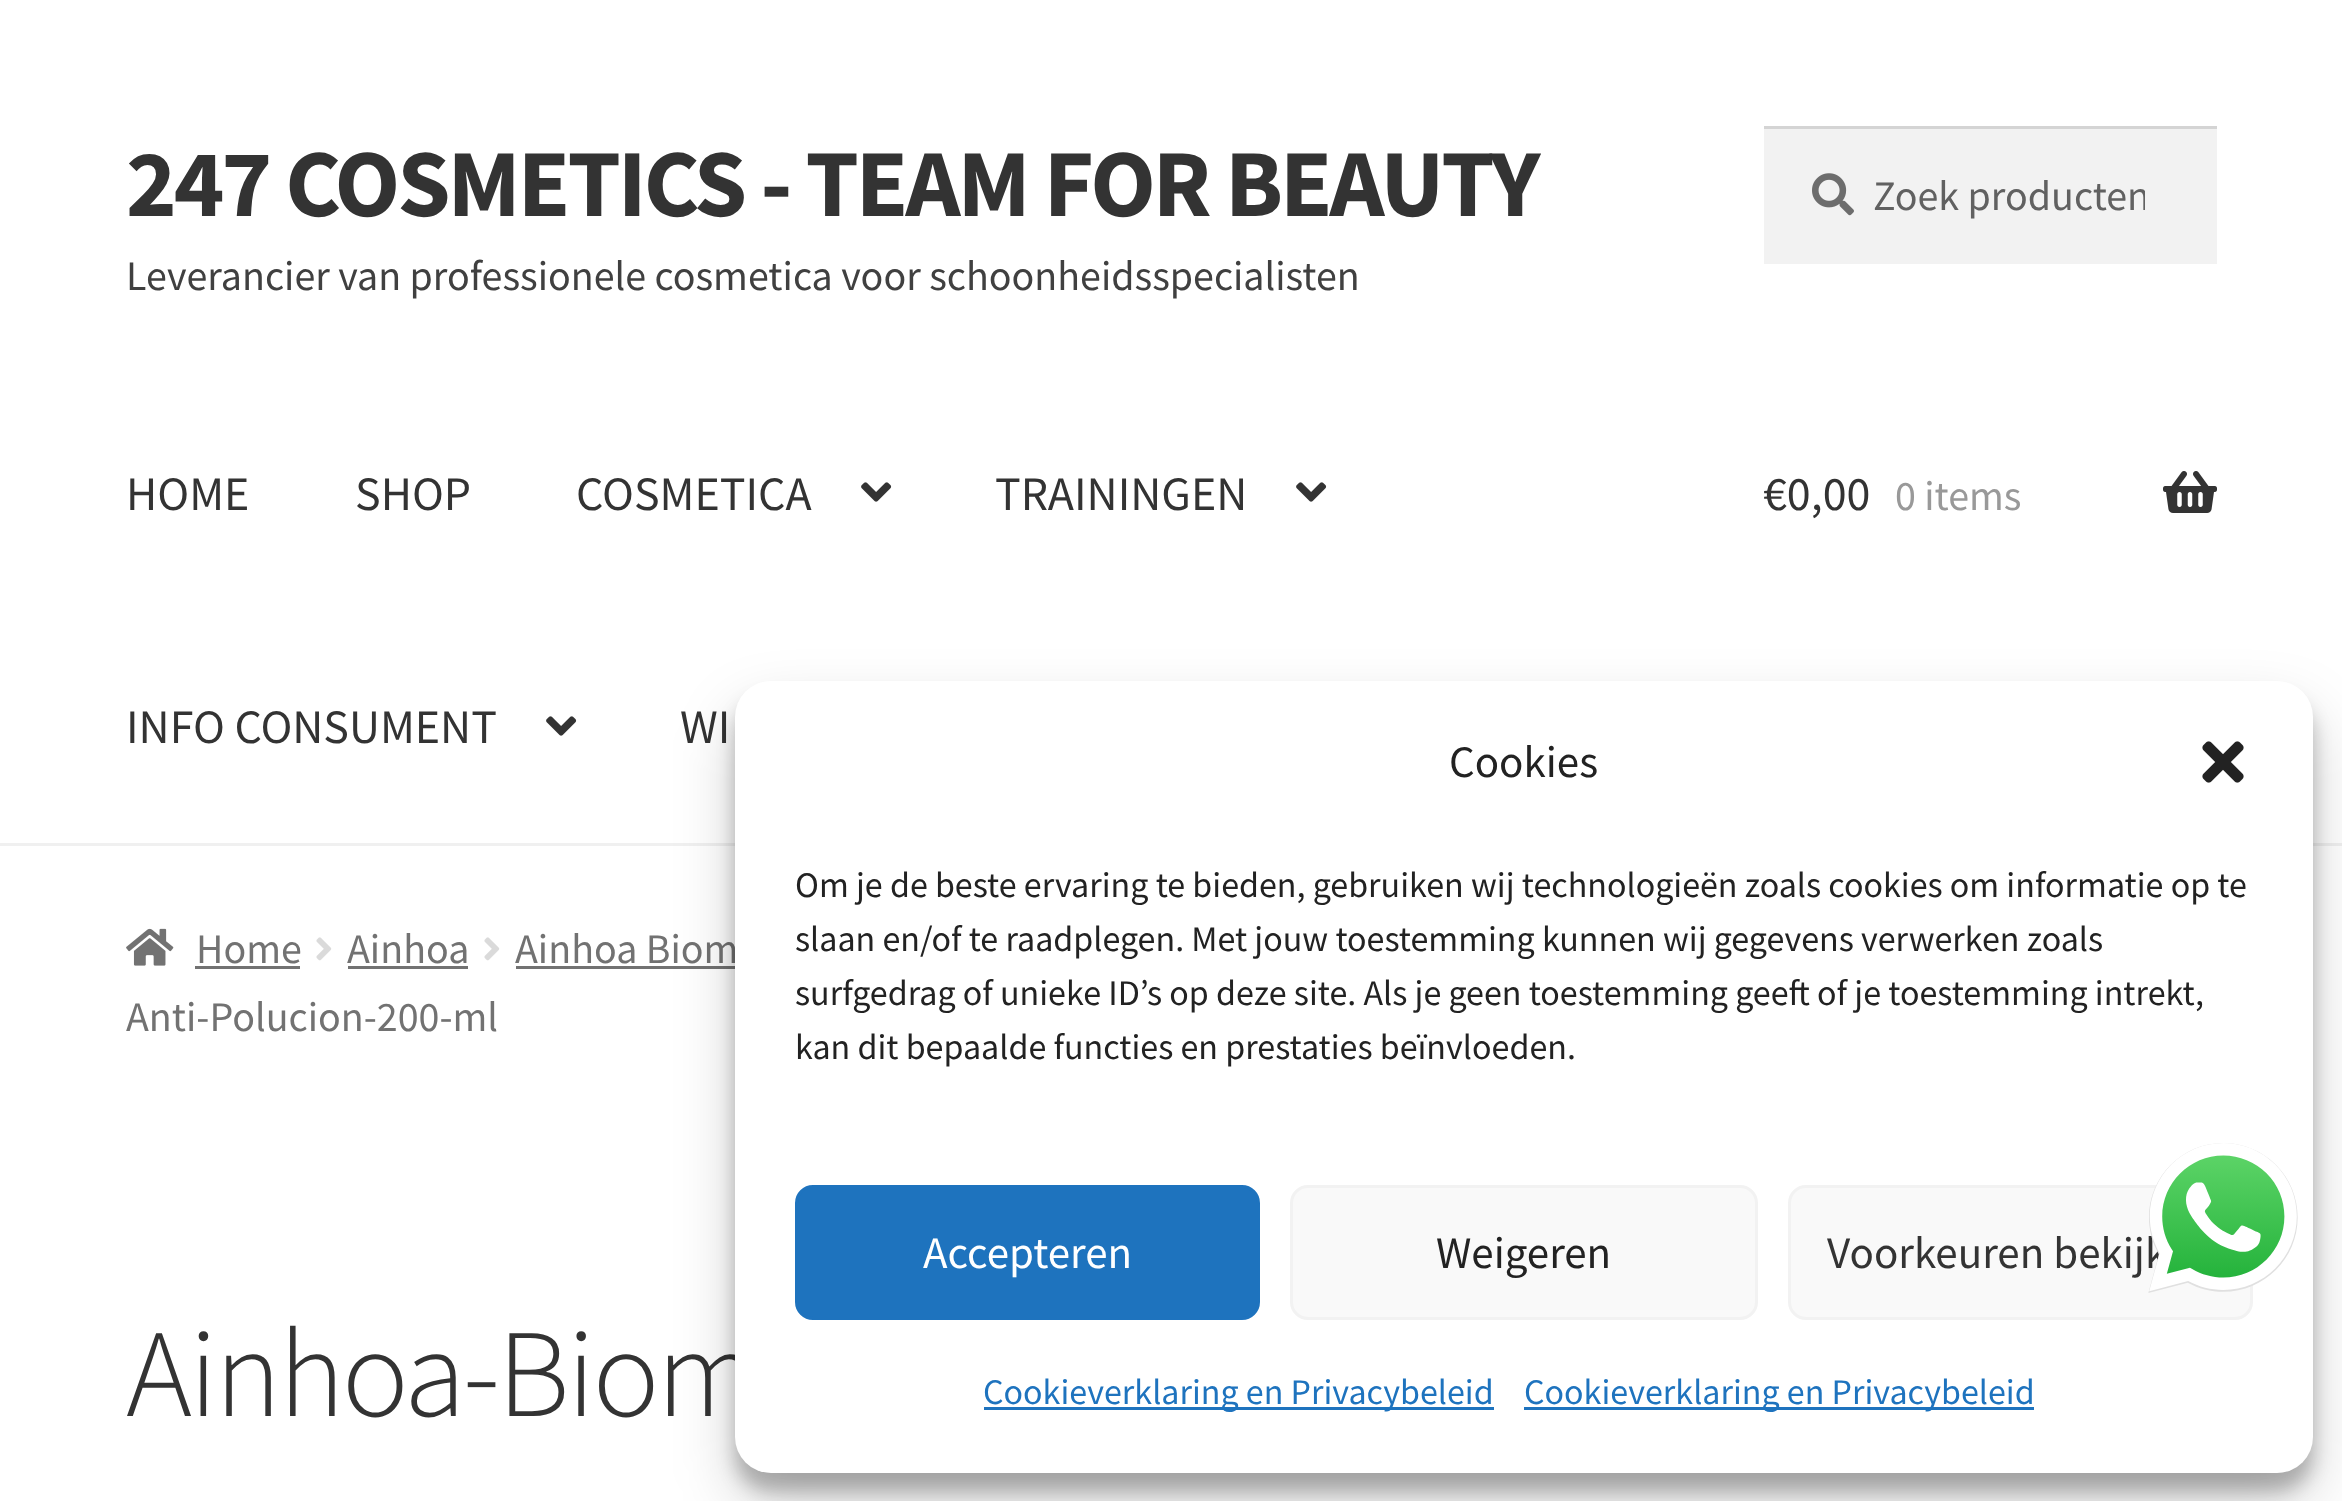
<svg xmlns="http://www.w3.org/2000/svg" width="2342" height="1501">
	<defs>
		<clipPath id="clip1"><rect x="1872" y="168" width="273" height="54" /></clipPath>
	</defs>
	<rect width="100%" height="100%" fill="#FFFFFF" />
	<rect x="0" y="843" width="2342" height="3" fill="#F0F0F0" />
	<text x="126" y="216" font-family="Source Sans Pro" font-size="96" font-weight="700" letter-spacing="-3" fill="#333333">247 COSMETICS - TEAM FOR BEAUTY</text>
	<text x="126" y="290" font-family="Source Sans Pro" font-size="42" fill="#404040">Leverancier van professionele cosmetica voor schoonheidsspecialisten</text>
	<rect x="1764" y="129" width="453" height="135" fill="#F2F2F2" />
	<image x="1812" y="173" width="42" height="43" href="assets/img1.png" />
	<rect x="1764" y="126" width="453" height="3" fill="#D4D4D4" />
	<g clip-path="url(#clip1)">
		<text x="1873" y="210" font-family="Source Sans Pro" font-size="42" fill="#616161">Zoek producten</text>
	</g>
	<g font-family="Source Sans Pro" font-size="48" fill="#333333">
		<text x="126" y="510">HOME</text>
		<text x="355" y="510">SHOP</text>
		<text x="576" y="510">COSMETICA</text>
	</g>
	<image x="861" y="482" width="31" height="20" href="assets/img2.png" />
	<text x="995" y="510" font-family="Source Sans Pro" font-size="48" fill="#333333">TRAININGEN</text>
	<image x="1296" y="482" width="31" height="20" href="assets/img2.png" />
	<text x="126" y="743" font-family="Source Sans Pro" font-size="48" fill="#333333">INFO CONSUMENT</text>
	<image x="546" y="716" width="31" height="20" href="assets/img2.png" />
	<g font-family="Source Sans Pro" font-size="48" fill="#333333">
		<text x="680" y="743">WI</text>
		<text x="1763" y="510">€0,00</text>
	</g>
	<text x="1895" y="510" font-family="Source Sans Pro" font-size="42" fill="#999999">0 items</text>
	<image x="2163" y="471" width="54" height="42" href="assets/img3.png" />
	<image x="126" y="928" width="48" height="38" href="assets/img4.png" />
	<text x="196" y="963" font-family="Source Sans Pro" font-size="42" fill="#727272">Home</text>
	<rect x="195" y="966" width="105" height="3" fill="#727272" />
	<image x="316" y="937" width="16" height="24" href="assets/img5.png" />
	<text x="347" y="963" font-family="Source Sans Pro" font-size="42" fill="#727272">Ainhoa</text>
	<rect x="348" y="966" width="120" height="3" fill="#727272" />
	<image x="484" y="937" width="16" height="24" href="assets/img5.png" />
	<text x="515" y="963" font-family="Source Sans Pro" font-size="42" fill="#727272">Ainhoa Biom</text>
	<rect x="516" y="966" width="219" height="3" fill="#727272" />
	<text x="126" y="1031" font-family="Source Sans Pro" font-size="42" fill="#727272">Anti-Polucion-200-ml</text>
	<text x="126" y="1416" font-family="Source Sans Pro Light" font-size="125.5" font-weight="300" letter-spacing="-3" fill="#333333">Ainhoa-Biom</text>
	<rect x="735" y="699" width="1578" height="792" rx="36" fill="#000000" fill-opacity="0.23" filter="blur(9px)" />
	<rect x="735" y="711" width="1578" height="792" rx="36" fill="#000000" fill-opacity="0.19" filter="blur(30px)" />
	<rect x="735" y="681" width="1578" height="792" rx="36" fill="#FFFFFF" />
	<text x="1449" y="777" font-family="Source Sans Pro" font-size="45" fill="#222222">Cookies</text>
	<image x="2202" y="741" width="42" height="42" href="assets/img6.png" />
	<g font-family="Source Sans Pro" font-size="36" fill="#222222">
		<text x="795" y="897">Om je de beste ervaring te bieden, gebruiken wij technologieën zoals cookies om informatie op te</text>
		<text x="795" y="951">slaan en/of te raadplegen. Met jouw toestemming kunnen wij gegevens verwerken zoals</text>
		<text x="795" y="1005">surfgedrag of unieke ID’s op deze site. Als je geen toestemming geeft of je toestemming intrekt,</text>
		<text x="795" y="1059">kan dit bepaalde functies en prestaties beïnvloeden.</text>
	</g>
	<rect x="796.5" y="1186.5" width="462" height="132" rx="16.5" fill="#1E73BE" stroke="#1E73BE" stroke-width="3" />
	<text x="923" y="1268" font-family="Source Sans Pro" font-size="45" fill="#FFFFFF">Accepteren</text>
	<rect x="1291.5" y="1186.5" width="465" height="132" rx="16.5" fill="#F9F9F9" stroke="#F2F2F2" stroke-width="3" />
	<text x="1436" y="1268" font-family="Source Sans Pro" font-size="45" fill="#222222">Weigeren</text>
	<rect x="1789.5" y="1186.5" width="462" height="132" rx="16.5" fill="#F9F9F9" stroke="#F2F2F2" stroke-width="3" />
	<text x="1827" y="1268" font-family="Source Sans Pro" font-size="45" fill="#333333">Voorkeuren bekijk</text>
	<rect x="984" y="1407" width="510" height="3" fill="#1E73BE" />
	<text x="983" y="1404" font-family="Source Sans Pro" font-size="36" fill="#1E73BE">Cookieverklaring en Privacybeleid</text>
	<rect x="1524" y="1407" width="510" height="3" fill="#1E73BE" />
	<text x="1524" y="1404" font-family="Source Sans Pro" font-size="36" fill="#1E73BE">Cookieverklaring en Privacybeleid</text>
	<image x="2148" y="1143" width="150" height="150" href="assets/img7.png" />
</svg>
